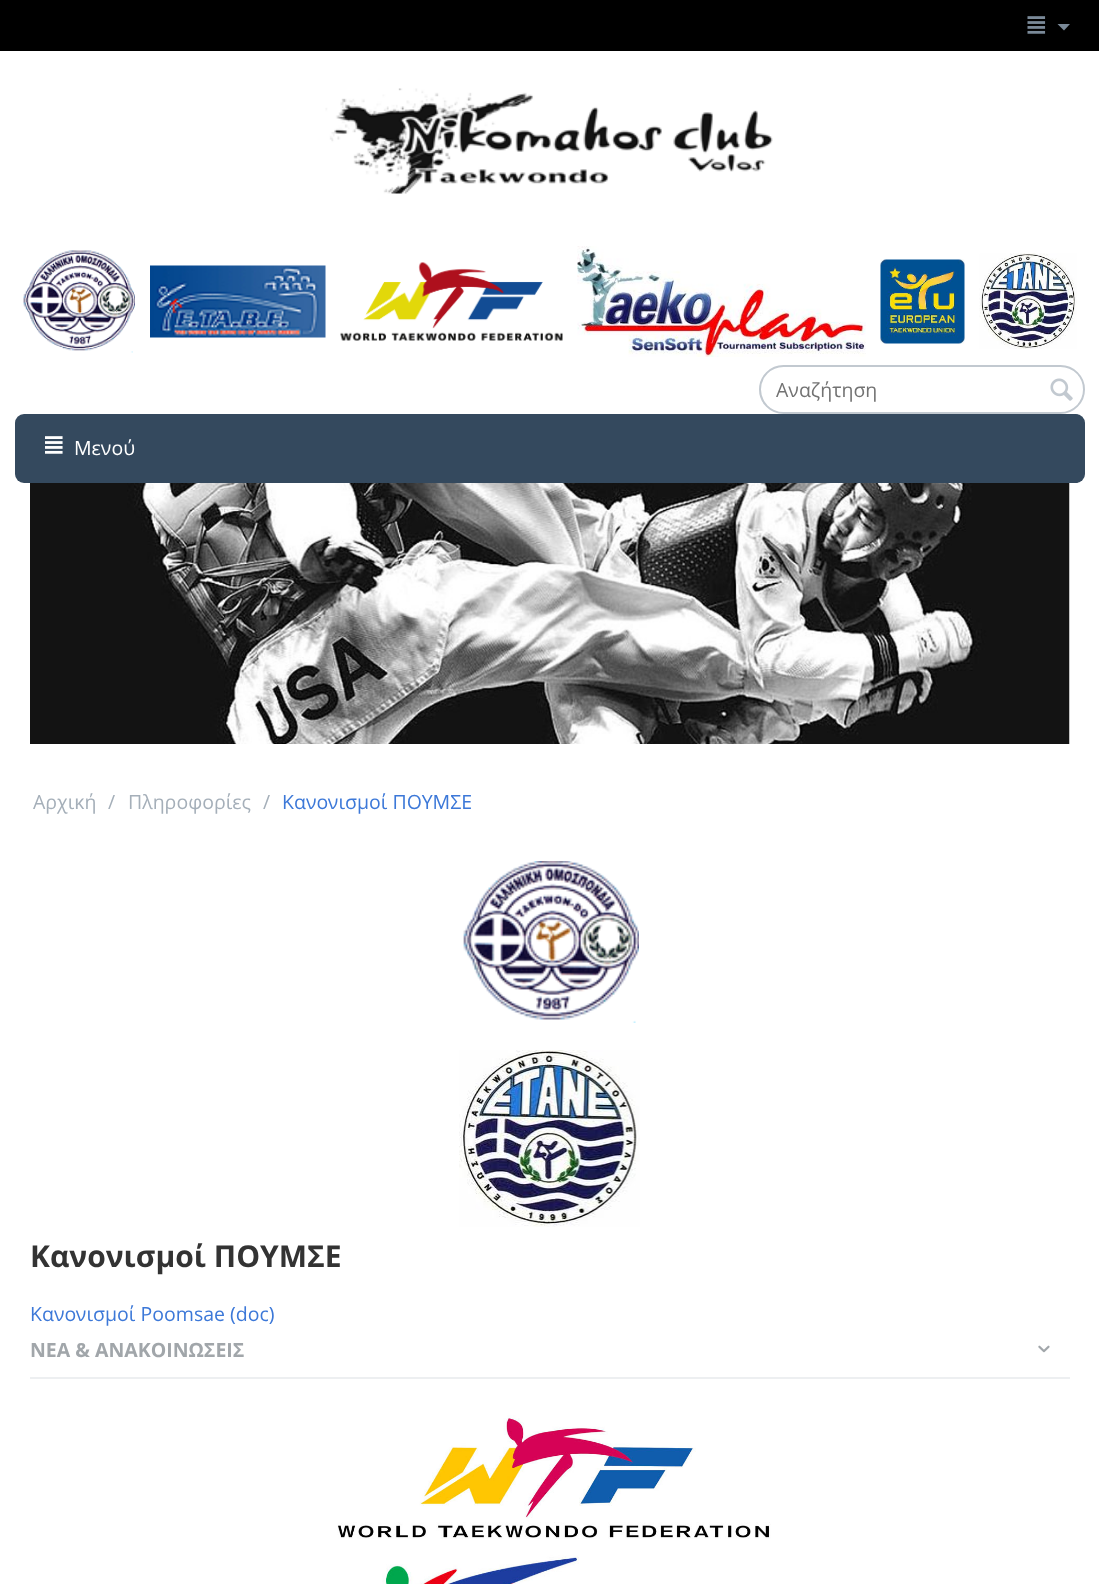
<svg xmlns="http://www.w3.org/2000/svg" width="1099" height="1584">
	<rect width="100%" height="100%" fill="#000000" />
	<image x="1027" y="16" width="19" height="18" href="assets/img1.png" />
	<path d="M1064 30.5L1057.5 24H1070Z" fill="#7A8998" />
	<rect x="0" y="51" width="1099" height="1533" fill="#FFFFFF" />
	<image x="325" y="88" width="448" height="106" href="assets/img2.png" />
	<image x="23" y="250" width="112" height="103" href="assets/img3.png" />
	<image x="150" y="265" width="176" height="73" href="assets/img4.png" />
	<image x="340" y="262" width="223" height="79" href="assets/img5.png" />
	<image x="577" y="246" width="289" height="111" href="assets/img6.png" />
	<image x="880" y="259" width="85" height="85" href="assets/img7.png" />
	<image x="979" y="253" width="98" height="96" href="assets/img8.png" />
	<rect x="760" y="366" width="324" height="47" rx="23.5" fill="none" stroke="#C2C9D0" stroke-width="2" />
	<text x="776" y="397" font-family="Open Sans" font-size="19.5" fill="#737373">Αναζήτηση</text>
	<image x="1050" y="378" width="23" height="23" href="assets/img9.png" />
	<rect x="15" y="414" width="1070" height="69" rx="9" fill="#34495E" />
	<image x="45" y="436" width="18" height="18" href="assets/img10.png" />
	<text x="74" y="455" font-family="Open Sans" font-size="19.5" fill="#FFFFFF">Μενού</text>
	<image x="30" y="483" width="1040" height="261" href="assets/img11.png" />
	<g font-family="Open Sans" font-size="19.5" fill="#A5AFB9">
		<text x="33" y="809">Αρχική</text>
		<text x="108" y="809">/</text>
		<text x="128" y="809">Πληροφορίες</text>
		<text x="263" y="809">/</text>
	</g>
	<text x="282" y="809" font-family="Open Sans" font-size="19.5" fill="#3C78D8">Κανονισμοί ΠΟΥΜΣΕ</text>
	<image x="463" y="861" width="176" height="162" href="assets/img12.png" />
	<image x="459" y="1050" width="181" height="177" href="assets/img13.png" />
	<text x="30" y="1267" font-family="Open Sans" font-size="30" font-weight="700" fill="#333333">Κανονισμοί ΠΟΥΜΣΕ</text>
	<text x="30" y="1321" font-family="Open Sans" font-size="19.5" fill="#3C78D8">Κανονισμοί Poomsae (doc)</text>
	<rect x="30" y="1377" width="1040" height="2" fill="#EDEFF1" />
	<text x="30" y="1357" font-family="Open Sans" font-size="19.5" font-weight="700" fill="#A1A6AA">ΝΕΑ &amp; ΑΝΑΚΟΙΝΩΣΕΙΣ</text>
	<image x="1038" y="1345" width="12" height="8" href="assets/img14.png" />
	<image x="337" y="1415" width="434" height="169" href="assets/img15.png" />
</svg>
